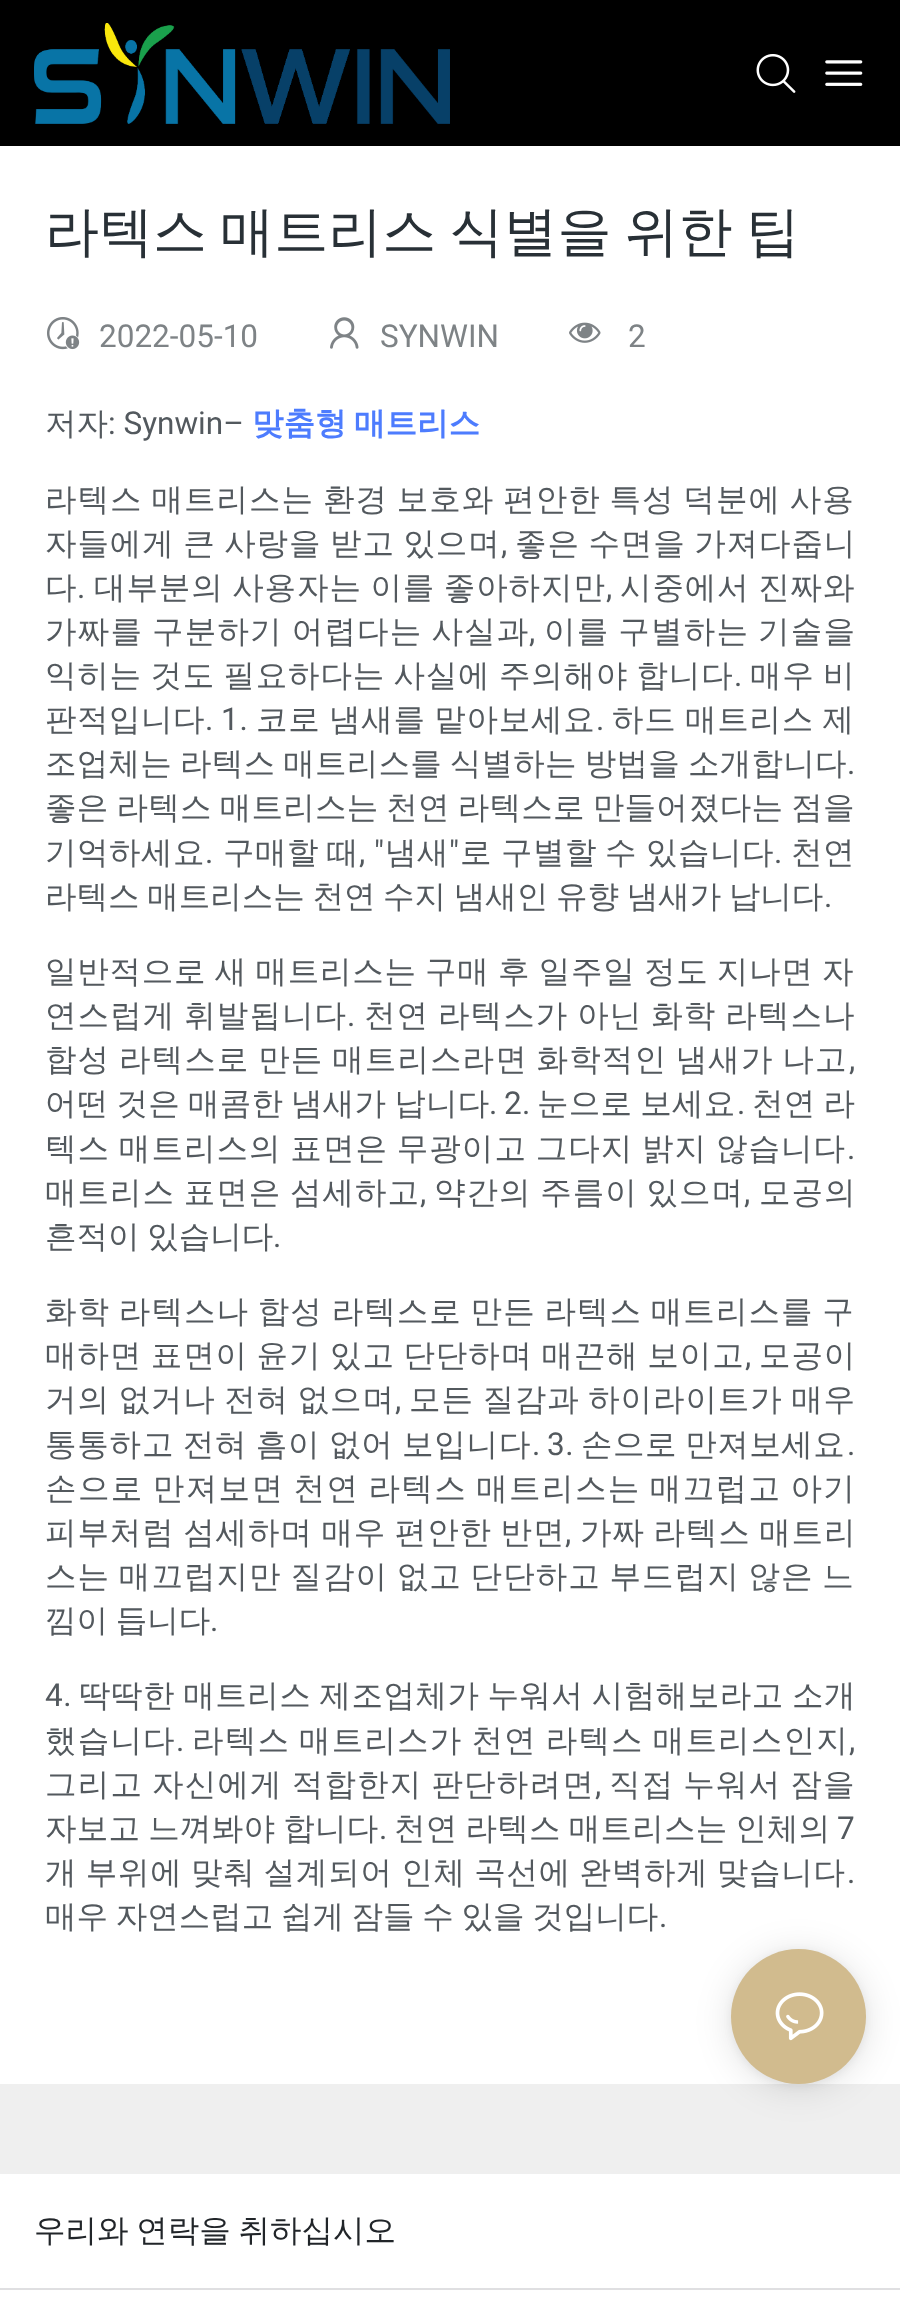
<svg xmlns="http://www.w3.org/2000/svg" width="900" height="2314">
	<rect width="100%" height="100%" fill="#EFEFEF" />
	<rect x="0" y="0" width="900" height="146" fill="#000000" />
	<image x="34" y="23" width="416" height="101" href="assets/img1.png" />
	<image x="756" y="54" width="40" height="39" href="assets/img2.png" />
	<image x="825" y="60" width="38" height="26" href="assets/img3.png" />
	<rect x="0" y="146" width="900" height="1938" fill="#FFFFFF" />
	<text x="45" y="250" word-spacing="-3" font-family="WenQuanYi Zen Hei" font-size="54" font-weight="500" fill="#283036">라텍스 매트리스 식별을 위한 팁</text>
	<image x="47" y="317" width="33" height="33" href="assets/img4.png" />
	<text x="99" y="347" font-family="Roboto" font-size="31.5" fill="#7E8386">2022-05-10</text>
	<image x="330" y="317" width="29" height="32" href="assets/img5.png" />
	<text x="380" y="347" font-family="Roboto" font-size="31.5" fill="#7E8386">SYNWIN</text>
	<image x="569" y="322" width="32" height="21" href="assets/img6.png" />
	<text x="628" y="347" font-family="Roboto" font-size="31.5" fill="#7E8386">2</text>
	<text x="45" y="434" font-family="WenQuanYi Zen Hei" font-size="31.5" font-weight="500" fill="#53595E">저자</text>
	<text x="108" y="434" font-family="Roboto" font-size="31.5" fill="#53595E">: Synwin–</text>
	<text x="252" y="434" word-spacing="-2" font-family="WenQuanYi Zen Hei" font-size="31.5" font-weight="700" fill="#4D7CFE">맞춤형 매트리스</text>
	<text x="45" y="510" word-spacing="-1.75" font-family="WenQuanYi Zen Hei" font-size="31.5" font-weight="500" letter-spacing="1.05" fill="#53595E">라텍스 매트리스는 환경 보호와 편안한 특성 덕분에 사용</text>
	<text x="45" y="554" word-spacing="-1.75" font-family="WenQuanYi Zen Hei" font-size="31.5" font-weight="500" letter-spacing="0.9" fill="#53595E">자들에게 큰 사랑을 받고 있으며</text>
	<text x="501" y="554" font-family="Roboto" font-size="31.5" letter-spacing="0.9" fill="#53595E">,</text>
	<g font-family="WenQuanYi Zen Hei" font-size="31.5" font-weight="500" letter-spacing="0.9" fill="#53595E">
		<text x="515" y="554" word-spacing="-1.75">좋은 수면을 가져다줍니</text>
		<text x="45" y="598">다</text>
	</g>
	<text x="77" y="598" font-family="Roboto" font-size="31.5" letter-spacing="0.9" fill="#53595E">.</text>
	<text x="94" y="598" word-spacing="-1.75" font-family="WenQuanYi Zen Hei" font-size="31.5" font-weight="500" letter-spacing="0.9" fill="#53595E">대부분의 사용자는 이를 좋아하지만</text>
	<text x="606" y="598" font-family="Roboto" font-size="31.5" letter-spacing="0.9" fill="#53595E">,</text>
	<text x="620" y="598" word-spacing="-1.75" font-family="WenQuanYi Zen Hei" font-size="31.5" font-weight="500" letter-spacing="0.9" fill="#53595E">시중에서 진짜와</text>
	<text x="45" y="642" word-spacing="-1.75" font-family="WenQuanYi Zen Hei" font-size="31.5" font-weight="500" letter-spacing="1.2" fill="#53595E">가짜를 구분하기 어렵다는 사실과</text>
	<text x="529" y="642" font-family="Roboto" font-size="31.5" letter-spacing="1.2" fill="#53595E">,</text>
	<text x="544" y="642" word-spacing="-1.75" font-family="WenQuanYi Zen Hei" font-size="31.5" font-weight="500" letter-spacing="1.2" fill="#53595E">이를 구별하는 기술을</text>
	<text x="45" y="686" word-spacing="-1.75" font-family="WenQuanYi Zen Hei" font-size="31.5" font-weight="500" letter-spacing="0.8" fill="#53595E">익히는 것도 필요하다는 사실에 주의해야 합니다</text>
	<text x="734" y="686" font-family="Roboto" font-size="31.5" letter-spacing="0.8" fill="#53595E">.</text>
	<text x="750" y="686" word-spacing="-1.75" font-family="WenQuanYi Zen Hei" font-size="31.5" font-weight="500" letter-spacing="0.8" fill="#53595E">매우 비</text>
	<text x="45" y="730" font-family="WenQuanYi Zen Hei" font-size="31.5" font-weight="500" letter-spacing="0.5" fill="#53595E">판적입니다</text>
	<text x="205" y="730" font-family="Roboto" font-size="31.5" letter-spacing="0.5" fill="#53595E">.</text>
	<text x="221" y="730" font-family="Roboto" font-size="31.5" letter-spacing="0.75" fill="#53595E">1.</text>
	<text x="256" y="730" word-spacing="-1.75" font-family="WenQuanYi Zen Hei" font-size="31.5" font-weight="500" letter-spacing="0.75" fill="#53595E">코로 냄새를 맡아보세요</text>
	<text x="596" y="730" font-family="Roboto" font-size="31.5" letter-spacing="0.75" fill="#53595E">.</text>
	<text x="612" y="730" word-spacing="-1.75" font-family="WenQuanYi Zen Hei" font-size="31.5" font-weight="500" letter-spacing="0.75" fill="#53595E">하드 매트리스 제</text>
	<text x="45" y="774" word-spacing="-1.75" font-family="WenQuanYi Zen Hei" font-size="31.5" font-weight="500" letter-spacing="0.25" fill="#53595E">조업체는 라텍스 매트리스를 식별하는 방법을 소개합니다</text>
	<text x="847" y="774" font-family="Roboto" font-size="31.5" letter-spacing="0.25" fill="#53595E">.</text>
	<text x="45" y="818" word-spacing="-1.75" font-family="WenQuanYi Zen Hei" font-size="31.5" font-weight="500" letter-spacing="0.25" fill="#53595E">좋은 라텍스 매트리스는 천연 라텍스로 만들어졌다는 점을</text>
	<text x="45" y="863" font-family="WenQuanYi Zen Hei" font-size="31.5" font-weight="500" letter-spacing="0.5" fill="#53595E">기억하세요</text>
	<text x="205" y="863" font-family="Roboto" font-size="31.5" letter-spacing="0.5" fill="#53595E">.</text>
	<g font-family="WenQuanYi Zen Hei" font-size="31.5" font-weight="500" letter-spacing="0.5" fill="#53595E">
		<text x="223" y="863">구매할</text>
		<text x="327" y="863">때</text>
	</g>
	<text x="359" y="863" font-family="Roboto" font-size="31.5" letter-spacing="0.5" fill="#53595E">, "</text>
	<text x="385" y="863" font-family="WenQuanYi Zen Hei" font-size="31.5" font-weight="500" letter-spacing="0.5" fill="#53595E">냄새</text>
	<text x="449" y="863" font-family="Roboto" font-size="31.5" letter-spacing="0.5" fill="#53595E">"</text>
	<g font-family="WenQuanYi Zen Hei" font-size="31.5" font-weight="500" letter-spacing="0.5" fill="#53595E">
		<text x="460" y="863">로</text>
		<text x="501" y="863">구별할</text>
		<text x="605" y="863">수</text>
		<text x="646" y="863">있습니다</text>
	</g>
	<text x="774" y="863" font-family="Roboto" font-size="31.5" letter-spacing="0.5" fill="#53595E">.</text>
	<text x="791" y="863" font-family="WenQuanYi Zen Hei" font-size="31.5" font-weight="500" letter-spacing="0.5" fill="#53595E">천연</text>
	<text x="45" y="907" word-spacing="-1.75" font-family="WenQuanYi Zen Hei" font-size="31.5" font-weight="500" fill="#53595E">라텍스 매트리스는 천연 수지 냄새인 유향 냄새가 납니다</text>
	<text x="824" y="907" font-family="Roboto" font-size="31.5" fill="#53595E">.</text>
	<text x="45" y="982" word-spacing="-1.75" font-family="WenQuanYi Zen Hei" font-size="31.5" font-weight="500" letter-spacing="0.75" fill="#53595E">일반적으로 새 매트리스는 구매 후 일주일 정도 지나면 자</text>
	<text x="45" y="1026" word-spacing="-1.75" font-family="WenQuanYi Zen Hei" font-size="31.5" font-weight="500" letter-spacing="1.1" fill="#53595E">연스럽게 휘발됩니다</text>
	<text x="347" y="1026" font-family="Roboto" font-size="31.5" letter-spacing="1.1" fill="#53595E">.</text>
	<g font-family="WenQuanYi Zen Hei" font-size="31.5" font-weight="500" letter-spacing="1.1" fill="#53595E">
		<text x="364" y="1026" word-spacing="-1.75">천연 라텍스가 아닌 화학 라텍스나</text>
		<text x="45" y="1070" word-spacing="-1.75">합성 라텍스로 만든 매트리스라면 화학적인 냄새가 나고</text>
	</g>
	<text x="849" y="1070" font-family="Roboto" font-size="31.5" letter-spacing="1.1" fill="#53595E">,</text>
	<text x="45" y="1114" word-spacing="-1.75" font-family="WenQuanYi Zen Hei" font-size="31.5" font-weight="500" letter-spacing="0.25" fill="#53595E">어떤 것은 매콤한 냄새가 납니다</text>
	<g font-family="Roboto" font-size="31.5" letter-spacing="0.25" fill="#53595E">
		<text x="489" y="1114">.</text>
		<text x="504" y="1114">2.</text>
	</g>
	<text x="537" y="1114" word-spacing="-1.75" font-family="WenQuanYi Zen Hei" font-size="31.5" font-weight="500" letter-spacing="0.25" fill="#53595E">눈으로 보세요</text>
	<text x="737" y="1114" font-family="Roboto" font-size="31.5" letter-spacing="0.25" fill="#53595E">.</text>
	<text x="752" y="1114" word-spacing="-1.75" font-family="WenQuanYi Zen Hei" font-size="31.5" font-weight="500" letter-spacing="0.25" fill="#53595E">천연 라</text>
	<text x="45" y="1159" word-spacing="-1.75" font-family="WenQuanYi Zen Hei" font-size="31.5" font-weight="500" letter-spacing="1.05" fill="#53595E">텍스 매트리스의 표면은 무광이고 그다지 밝지 않습니다</text>
	<text x="847" y="1159" font-family="Roboto" font-size="31.5" letter-spacing="1.05" fill="#53595E">.</text>
	<text x="45" y="1203" word-spacing="-1.75" font-family="WenQuanYi Zen Hei" font-size="31.5" font-weight="500" letter-spacing="1" fill="#53595E">매트리스 표면은 섬세하고</text>
	<text x="420" y="1203" font-family="Roboto" font-size="31.5" letter-spacing="1" fill="#53595E">,</text>
	<text x="434" y="1203" word-spacing="-1.75" font-family="WenQuanYi Zen Hei" font-size="31.5" font-weight="500" letter-spacing="1" fill="#53595E">약간의 주름이 있으며</text>
	<text x="744" y="1203" font-family="Roboto" font-size="31.5" letter-spacing="1" fill="#53595E">,</text>
	<text x="759" y="1203" font-family="WenQuanYi Zen Hei" font-size="31.5" font-weight="500" letter-spacing="1" fill="#53595E">모공의</text>
	<text x="45" y="1247" word-spacing="-1.75" font-family="WenQuanYi Zen Hei" font-size="31.5" font-weight="500" fill="#53595E">흔적이 있습니다</text>
	<text x="273" y="1247" font-family="Roboto" font-size="31.5" fill="#53595E">.</text>
	<text x="45" y="1322" word-spacing="-1.75" font-family="WenQuanYi Zen Hei" font-size="31.5" font-weight="500" letter-spacing="1.05" fill="#53595E">화학 라텍스나 합성 라텍스로 만든 라텍스 매트리스를 구</text>
	<text x="45" y="1366" word-spacing="-1.75" font-family="WenQuanYi Zen Hei" font-size="31.5" font-weight="500" letter-spacing="0.9" fill="#53595E">매하면 표면이 윤기 있고 단단하며 매끈해 보이고</text>
	<text x="745" y="1366" font-family="Roboto" font-size="31.5" letter-spacing="0.9" fill="#53595E">,</text>
	<g font-family="WenQuanYi Zen Hei" font-size="31.5" font-weight="500" letter-spacing="0.9" fill="#53595E">
		<text x="759" y="1366">모공이</text>
		<text x="45" y="1410" word-spacing="-1.75">거의 없거나 전혀 없으며</text>
	</g>
	<text x="395" y="1410" font-family="Roboto" font-size="31.5" letter-spacing="0.9" fill="#53595E">,</text>
	<text x="409" y="1410" word-spacing="-1.75" font-family="WenQuanYi Zen Hei" font-size="31.5" font-weight="500" letter-spacing="0.9" fill="#53595E">모든 질감과 하이라이트가 매우</text>
	<text x="45" y="1455" word-spacing="-1.75" font-family="WenQuanYi Zen Hei" font-size="31.5" font-weight="500" letter-spacing="0.8" fill="#53595E">통통하고 전혀 흠이 없어 보입니다</text>
	<text x="532" y="1455" font-family="Roboto" font-size="31.5" letter-spacing="0.8" fill="#53595E">.</text>
	<text x="547" y="1455" font-family="Roboto" font-size="31.5" letter-spacing="0.5" fill="#53595E">3.</text>
	<text x="581" y="1455" word-spacing="-1.75" font-family="WenQuanYi Zen Hei" font-size="31.5" font-weight="500" letter-spacing="0.5" fill="#53595E">손으로 만져보세요</text>
	<text x="847" y="1455" font-family="Roboto" font-size="31.5" letter-spacing="0.5" fill="#53595E">.</text>
	<text x="45" y="1499" word-spacing="-1.75" font-family="WenQuanYi Zen Hei" font-size="31.5" font-weight="500" letter-spacing="1.4" fill="#53595E">손으로 만져보면 천연 라텍스 매트리스는 매끄럽고 아기</text>
	<text x="45" y="1543" word-spacing="-1.75" font-family="WenQuanYi Zen Hei" font-size="31.5" font-weight="500" letter-spacing="0.9" fill="#53595E">피부처럼 섬세하며 매우 편안한 반면</text>
	<text x="565" y="1543" font-family="Roboto" font-size="31.5" letter-spacing="0.9" fill="#53595E">,</text>
	<text x="580" y="1543" word-spacing="-1.75" font-family="WenQuanYi Zen Hei" font-size="31.5" font-weight="500" letter-spacing="0.9" fill="#53595E">가짜 라텍스 매트리</text>
	<text x="45" y="1587" word-spacing="-1.75" font-family="WenQuanYi Zen Hei" font-size="31.5" font-weight="500" letter-spacing="1.05" fill="#53595E">스는 매끄럽지만 질감이 없고 단단하고 부드럽지 않은 느</text>
	<text x="45" y="1631" word-spacing="-1.75" font-family="WenQuanYi Zen Hei" font-size="31.5" font-weight="500" fill="#53595E">낌이 듭니다</text>
	<text x="210" y="1631" font-family="Roboto" font-size="31.5" fill="#53595E">.</text>
	<text x="45" y="1706" font-family="Roboto" font-size="31.5" letter-spacing="0.5" fill="#53595E">4.</text>
	<text x="79" y="1706" word-spacing="-1.75" font-family="WenQuanYi Zen Hei" font-size="31.5" font-weight="500" letter-spacing="0.5" fill="#53595E">딱딱한 매트리스 제조업체가 누워서 시험해보라고 소개</text>
	<text x="45" y="1751" font-family="WenQuanYi Zen Hei" font-size="31.5" font-weight="500" letter-spacing="1.2" fill="#53595E">했습니다</text>
	<text x="176" y="1751" font-family="Roboto" font-size="31.5" letter-spacing="1.2" fill="#53595E">.</text>
	<text x="192" y="1751" word-spacing="-1.75" font-family="WenQuanYi Zen Hei" font-size="31.5" font-weight="500" letter-spacing="1.2" fill="#53595E">라텍스 매트리스가 천연 라텍스 매트리스인지</text>
	<text x="849" y="1751" font-family="Roboto" font-size="31.5" letter-spacing="1.2" fill="#53595E">,</text>
	<text x="45" y="1795" word-spacing="-1.75" font-family="WenQuanYi Zen Hei" font-size="31.5" font-weight="500" letter-spacing="1.2" fill="#53595E">그리고 자신에게 적합한지 판단하려면</text>
	<text x="595" y="1795" font-family="Roboto" font-size="31.5" letter-spacing="1.2" fill="#53595E">,</text>
	<text x="609" y="1795" word-spacing="-1.75" font-family="WenQuanYi Zen Hei" font-size="31.5" font-weight="500" letter-spacing="1.2" fill="#53595E">직접 누워서 잠을</text>
	<text x="45" y="1839" word-spacing="-1.75" font-family="WenQuanYi Zen Hei" font-size="31.5" font-weight="500" letter-spacing="0.25" fill="#53595E">자보고 느껴봐야 합니다</text>
	<text x="379" y="1839" font-family="Roboto" font-size="31.5" letter-spacing="0.25" fill="#53595E">.</text>
	<text x="394" y="1839" word-spacing="-1.75" font-family="WenQuanYi Zen Hei" font-size="31.5" font-weight="500" letter-spacing="0.25" fill="#53595E">천연 라텍스 매트리스는 인체의</text>
	<text x="837" y="1839" font-family="Roboto" font-size="31.5" letter-spacing="0.25" fill="#53595E">7</text>
	<text x="45" y="1883" word-spacing="-1.75" font-family="WenQuanYi Zen Hei" font-size="31.5" font-weight="500" letter-spacing="0.75" fill="#53595E">개 부위에 맞춰 설계되어 인체 곡선에 완벽하게 맞습니다</text>
	<text x="847" y="1883" font-family="Roboto" font-size="31.5" letter-spacing="0.75" fill="#53595E">.</text>
	<text x="45" y="1927" word-spacing="-1.75" font-family="WenQuanYi Zen Hei" font-size="31.5" font-weight="500" fill="#53595E">매우 자연스럽고 쉽게 잠들 수 있을 것입니다</text>
	<text x="659" y="1927" font-family="Roboto" font-size="31.5" fill="#53595E">.</text>
	<rect x="0" y="2174" width="900" height="140" fill="#FFFFFF" />
	<rect x="0" y="2288" width="900" height="2" fill="#DFDFE1" />
	<text x="34" y="2241" word-spacing="-1.75" font-family="WenQuanYi Zen Hei" font-size="31.5" font-weight="500" fill="#212529">우리와 연락을 취하십시오</text>
	<rect x="731" y="1953" width="135" height="135" rx="67.5" fill="#000000" fill-opacity="0.12" filter="blur(18px)" />
	<rect x="731" y="1951" width="135" height="135" rx="67.5" fill="#000000" fill-opacity="0.06" filter="blur(4.5px)" />
	<circle cx="798.5" cy="2016.5" r="67.5" fill="#D1BB8E" />
	<image x="775" y="1992" width="49" height="49" href="assets/img7.png" />
</svg>
